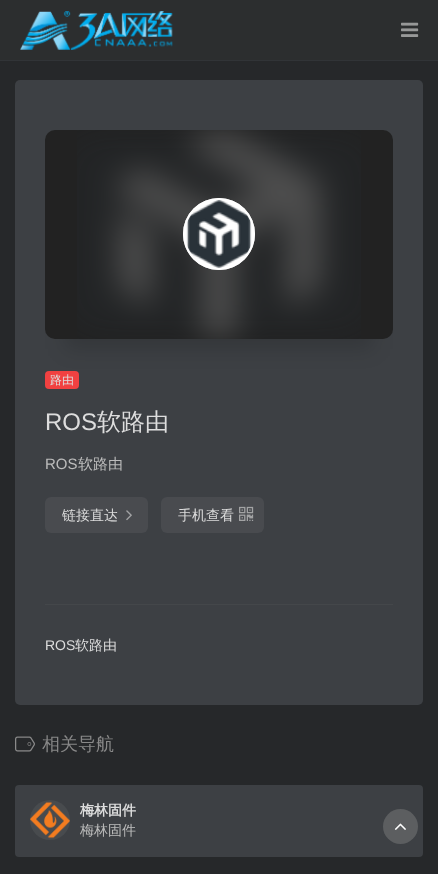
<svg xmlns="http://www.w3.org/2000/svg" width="438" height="874">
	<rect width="100%" height="100%" fill="#26282A" />
	<rect x="0" y="0" width="438" height="60" fill="#2C2E2F" />
	<rect x="0" y="60" width="438" height="1" fill="#313437" />
	<image x="20" y="11" width="153" height="39" href="assets/img1.png" />
	<image x="401" y="22" width="18" height="15" href="assets/img2.png" />
	<rect x="15" y="80" width="408" height="625" rx="5" fill="#3D4044" />
	<rect x="65" y="180" width="308" height="169" fill="#000000" fill-opacity="0.15" filter="blur(10px)" />
	<rect x="45" y="130" width="348" height="209" rx="10" fill="#222222" />
	<image x="77" y="130" width="284" height="209" href="assets/img3.png" />
	<circle cx="219" cy="234" r="36" fill="#FFFFFF" />
	<circle cx="219" cy="234" r="35" fill="none" stroke="#FFFFFF" stroke-opacity="0.9" stroke-width="2" />
	<image x="186" y="200" width="66" height="68" href="assets/img4.png" />
	<rect x="45" y="371" width="34" height="18" rx="4" fill="#F14141" />
	<text x="50" y="384" font-family="WenQuanYi Zen Hei" font-size="12" font-weight="500" fill="#DDDDDD">路由</text>
	<text x="45" y="430" font-family="Liberation Sans" font-size="24" fill="#DDDDDD">ROS</text>
	<text x="97" y="430" font-family="WenQuanYi Zen Hei" font-size="24" font-weight="500" fill="#DDDDDD">软路由</text>
	<text x="45" y="469" font-family="Liberation Sans" font-size="15" fill="#BCBCBC">ROS</text>
	<text x="78" y="469" font-family="WenQuanYi Zen Hei" font-size="15" font-weight="500" fill="#BCBCBC">软路由</text>
	<rect x="45" y="497" width="103" height="36" rx="6" fill="#494B4F" />
	<text x="62" y="520" font-family="WenQuanYi Zen Hei" font-size="14" font-weight="500" fill="#DDDDDD">链接直达</text>
	<image x="126" y="510" width="6" height="11" href="assets/img5.png" />
	<rect x="161" y="497" width="103" height="36" rx="6" fill="#494B4F" />
	<text x="178" y="520" font-family="WenQuanYi Zen Hei" font-size="14" font-weight="500" fill="#DDDDDD">手机查看</text>
	<image x="239" y="506" width="15" height="15" href="assets/img6.png" />
	<rect x="45" y="604" width="348" height="1" fill="#44474A" />
	<text x="45" y="650" font-family="Liberation Sans" font-size="14" fill="#DDDDDD">ROS</text>
	<text x="75" y="650" font-family="WenQuanYi Zen Hei" font-size="14" font-weight="500" fill="#DDDDDD">软路由</text>
	<image x="15" y="736" width="20" height="16" href="assets/img7.png" />
	<text x="42" y="750" font-family="WenQuanYi Zen Hei" font-size="18" font-weight="500" fill="#888888">相关导航</text>
	<rect x="15" y="785" width="408" height="72" rx="4" fill="#3D4044" />
	<circle cx="50" cy="820" r="20" fill="#484B4E" />
	<image x="30" y="801" width="40" height="38" href="assets/img8.png" />
	<text x="80" y="815" font-family="WenQuanYi Zen Hei" font-size="14" font-weight="700" fill="#DDDDDD">梅林固件</text>
	<text x="80" y="835" font-family="WenQuanYi Zen Hei" font-size="14" font-weight="500" fill="#BCBCBC">梅林固件</text>
	<circle cx="400.5" cy="826.5" r="17.5" fill="#5C5E60" />
	<image x="394" y="823" width="12" height="7" href="assets/img9.png" />
</svg>
